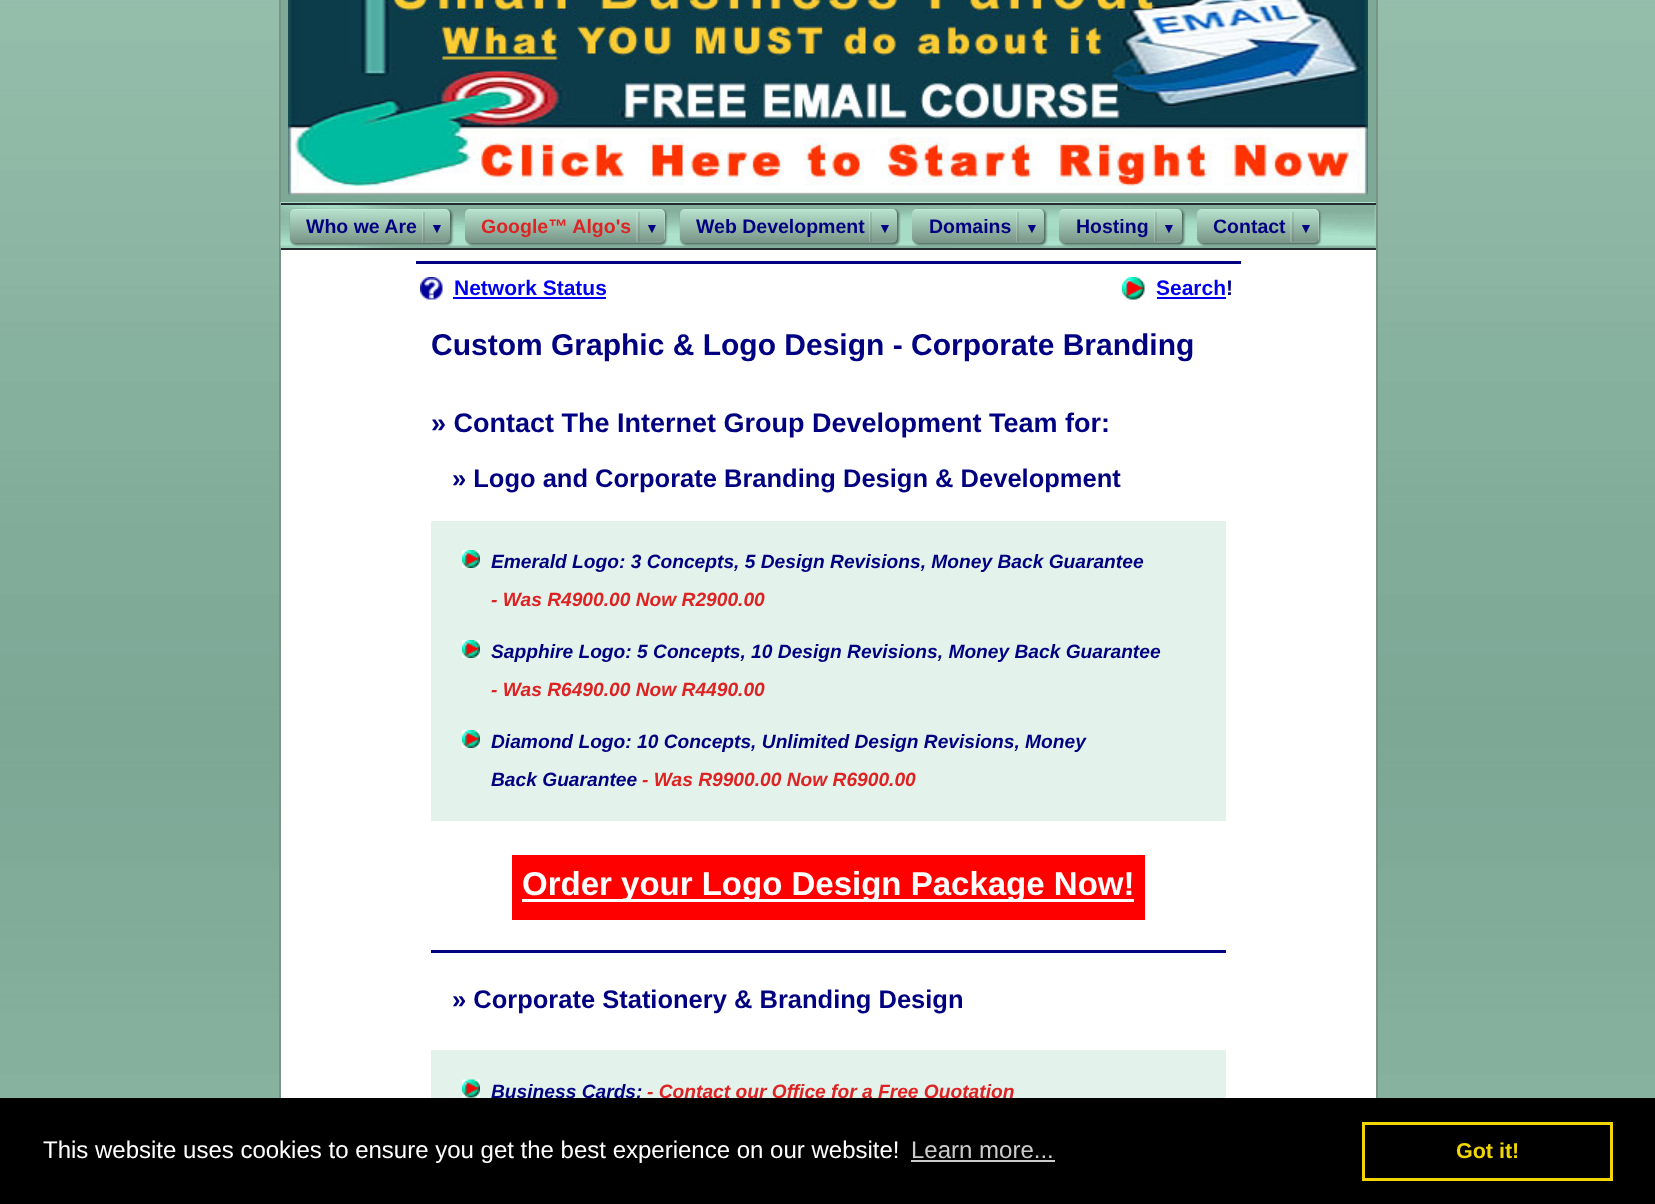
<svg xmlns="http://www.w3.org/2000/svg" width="1655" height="1204">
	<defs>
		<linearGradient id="g1" gradientUnits="userSpaceOnUse" x1="370" y1="209" x2="370" y2="243"><stop offset="0" stop-color="#B8E4CF" /><stop offset="1" stop-color="#789486" /></linearGradient>
		<linearGradient id="g2" gradientUnits="userSpaceOnUse" x1="565" y1="209" x2="565" y2="243"><stop offset="0" stop-color="#B8E4CF" /><stop offset="1" stop-color="#789486" /></linearGradient>
		<linearGradient id="g3" gradientUnits="userSpaceOnUse" x1="788" y1="209" x2="788" y2="243"><stop offset="0" stop-color="#B8E4CF" /><stop offset="1" stop-color="#789486" /></linearGradient>
		<linearGradient id="g4" gradientUnits="userSpaceOnUse" x1="978" y1="209" x2="978" y2="243"><stop offset="0" stop-color="#B8E4CF" /><stop offset="1" stop-color="#789486" /></linearGradient>
		<linearGradient id="g5" gradientUnits="userSpaceOnUse" x1="1121" y1="209" x2="1121" y2="243"><stop offset="0" stop-color="#B8E4CF" /><stop offset="1" stop-color="#789486" /></linearGradient>
		<linearGradient id="g6" gradientUnits="userSpaceOnUse" x1="1258" y1="209" x2="1258" y2="243"><stop offset="0" stop-color="#B8E4CF" /><stop offset="1" stop-color="#789486" /></linearGradient>
	</defs>
	<rect width="100%" height="100%" fill="#FFFFFF" />
	<image x="0" y="0" width="1655" height="1098" href="assets/img1.png" />
	<rect x="281" y="250" width="1095" height="848" fill="#FFFFFF" />
	<rect x="1376" y="0" width="2" height="1098" fill="#799487" />
	<rect x="279" y="0" width="2" height="1098" fill="#799487" />
	<rect x="281" y="0" width="1095" height="203" fill="#7EA997" />
	<image x="288" y="0" width="1080" height="195" href="assets/img2.png" />
	<rect x="1375" y="205" width="1" height="43" fill="#A3CAB6" />
	<image x="280" y="202" width="1096" height="47" href="assets/img3.png" />
	<rect x="281" y="203" width="1095" height="2" fill="#252A30" />
	<rect x="281" y="248" width="1095" height="2" fill="#252A30" />
	<rect x="291" y="210" width="161" height="35" rx="5" fill="#000000" fill-opacity="0.5" filter="blur(1px)" />
	<rect x="290" y="209" width="160" height="34" rx="5" fill="url(#g1)" />
	<path d="M294 210H446C448 210 450 212 450 214C450 211 448 209 445 209H295C292 209 290 211 290 214C290 212 292 210 294 210Z" fill="#FFFFFF" fill-opacity="0.2" />
	<text x="306" y="233" font-family="Liberation Sans" font-size="19.5" font-weight="700" fill="#000080">Who we Are</text>
	<path d="M422 212V242H449V241.5H423V212Z" fill="#FFFFFF" fill-opacity="0.2" />
	<rect x="423" y="212" width="2" height="30" fill="#646464" fill-opacity="0.2" />
	<text x="430" y="233" font-family="Liberation Sans" font-size="14" font-weight="700" fill="#000080">▼</text>
	<rect x="467" y="210" width="199" height="35" rx="5" fill="#000000" fill-opacity="0.5" filter="blur(1px)" />
	<rect x="465" y="209" width="200" height="34" rx="5" fill="url(#g2)" />
	<path d="M470 210H660C666 210 664 220 664 223V241C665 240 665 239 665 238V214C665 211 663 209 660 209H470C467 209 465 211 465 214C465 212 467 210 470 210Z" fill="#FFFFFF" fill-opacity="0.2" />
	<text x="481" y="233" font-family="Liberation Sans" font-size="19.5" font-weight="700" fill="#DD2323">Google™ Algo's</text>
	<path d="M636 212V242H663V241.5H637.5V212Z" fill="#FFFFFF" fill-opacity="0.2" />
	<rect x="638" y="212" width="2" height="30" fill="#646464" fill-opacity="0.2" />
	<text x="645" y="233" font-family="Liberation Sans" font-size="14" font-weight="700" fill="#000080">▼</text>
	<rect x="681" y="210" width="218" height="35" rx="5" fill="#000000" fill-opacity="0.5" filter="blur(1px)" />
	<rect x="680" y="209" width="217" height="34" rx="5" fill="url(#g3)" />
	<path d="M684 210H892C895 210 897 212 897 214C897 211 895 209 892 209H685C682 209 680 211 680 214C680 212 682 210 684 210Z" fill="#FFFFFF" fill-opacity="0.2" />
	<text x="696" y="233" font-family="Liberation Sans" font-size="19.5" font-weight="700" fill="#000080">Web Development</text>
	<path d="M869 212V242H896V241.5H870V212Z" fill="#FFFFFF" fill-opacity="0.2" />
	<rect x="870" y="212" width="2" height="30" fill="#646464" fill-opacity="0.2" />
	<text x="878" y="233" font-family="Liberation Sans" font-size="14" font-weight="700" fill="#000080">▼</text>
	<rect x="914" y="210" width="132" height="35" rx="5" fill="#000000" fill-opacity="0.5" filter="blur(1px)" />
	<rect x="912" y="209" width="132" height="34" rx="5" fill="url(#g4)" />
	<path d="M916 210H1040C1042 210 1044 212 1044 214C1044 211 1042 209 1039 209H917C914 209 912 211 912 214C912 212 914 210 916 210Z" fill="#FFFFFF" fill-opacity="0.2" />
	<text x="929" y="233" font-family="Liberation Sans" font-size="19.5" font-weight="700" fill="#000080">Domains</text>
	<path d="M1016 212V242H1043V241.5H1017V212Z" fill="#FFFFFF" fill-opacity="0.2" />
	<rect x="1017" y="212" width="2" height="30" fill="#646464" fill-opacity="0.2" />
	<text x="1025" y="233" font-family="Liberation Sans" font-size="14" font-weight="700" fill="#000080">▼</text>
	<rect x="1061" y="210" width="123" height="35" rx="5" fill="#000000" fill-opacity="0.5" filter="blur(1px)" />
	<rect x="1059" y="209" width="123" height="34" rx="5" fill="url(#g5)" />
	<path d="M1064 210H1178C1180 210 1182 212 1182 214C1182 211 1180 209 1177 209H1064C1061 209 1059 211 1059 214C1059 212 1061 210 1064 210Z" fill="#FFFFFF" fill-opacity="0.2" />
	<text x="1076" y="233" font-family="Liberation Sans" font-size="19.5" font-weight="700" fill="#000080">Hosting</text>
	<path d="M1154 212V242H1181V241.5H1155V212Z" fill="#FFFFFF" fill-opacity="0.2" />
	<rect x="1155" y="212" width="2" height="30" fill="#646464" fill-opacity="0.2" />
	<text x="1162" y="233" font-family="Liberation Sans" font-size="14" font-weight="700" fill="#000080">▼</text>
	<rect x="1199" y="210" width="121" height="35" rx="5" fill="#000000" fill-opacity="0.5" filter="blur(1px)" />
	<rect x="1197" y="209" width="122" height="34" rx="5" fill="url(#g6)" />
	<path d="M1202 210H1295C1301 210 1316 207 1318 213V241C1319 240 1319 239 1319 238V214C1319 211 1317 209 1314 209H1202C1199 209 1197 211 1197 214C1197 212 1199 210 1202 210Z" fill="#FFFFFF" fill-opacity="0.2" />
	<text x="1213" y="233" font-family="Liberation Sans" font-size="19.5" font-weight="700" fill="#000080">Contact</text>
	<path d="M1290 212V242H1317V241.5H1291.5V212Z" fill="#FFFFFF" fill-opacity="0.2" />
	<rect x="1292" y="212" width="2" height="30" fill="#646464" fill-opacity="0.2" />
	<text x="1299" y="233" font-family="Liberation Sans" font-size="14" font-weight="700" fill="#000080">▼</text>
	<rect x="416" y="261" width="825" height="3" fill="#000080" />
	<image x="420" y="277" width="23" height="23" href="assets/img4.png" />
	<text x="454" y="295" font-family="Liberation Sans" font-size="21" font-weight="700" fill="#0000EE">Network Status</text>
	<rect x="453" y="297" width="153" height="2" fill="#0000EE" />
	<image x="1122" y="277" width="23" height="23" href="assets/img5.png" />
	<text x="1156" y="295" font-family="Liberation Sans" font-size="21" font-weight="700" fill="#0000EE">Search</text>
	<rect x="1157" y="297" width="69" height="2" fill="#0000EE" />
	<text x="1226" y="295" font-family="Liberation Sans" font-size="21" font-weight="700" fill="#000080">!</text>
	<text x="431" y="355" font-family="Liberation Sans" font-size="30" font-weight="700" fill="#000080">Custom Graphic &amp; Logo Design - Corporate Branding</text>
	<text x="431" y="432" font-family="Liberation Sans" font-size="27" font-weight="700" fill="#000080">» Contact The Internet Group Development Team for:</text>
	<text x="452" y="487" font-family="Liberation Sans" font-size="25.5" font-weight="700" fill="#000080">» Logo and Corporate Branding Design &amp; Development</text>
	<rect x="431" y="521" width="795" height="300" fill="#E3F3EB" />
	<image x="462" y="550" width="18" height="18" href="assets/img6.png" />
	<text x="491" y="568" font-family="Liberation Sans" font-size="19.2" font-weight="700" font-style="italic" fill="#000080">Emerald Logo: 3 Concepts, 5 Design Revisions, Money Back Guarantee</text>
	<text x="491" y="606" font-family="Liberation Sans" font-size="19.2" font-weight="700" font-style="italic" fill="#DD2323">- Was R4900.00 Now R2900.00</text>
	<image x="462" y="640" width="18" height="18" href="assets/img6.png" />
	<text x="491" y="658" font-family="Liberation Sans" font-size="19.2" font-weight="700" font-style="italic" fill="#000080">Sapphire Logo: 5 Concepts, 10 Design Revisions, Money Back Guarantee</text>
	<text x="491" y="696" font-family="Liberation Sans" font-size="19.2" font-weight="700" font-style="italic" fill="#DD2323">- Was R6490.00 Now R4490.00</text>
	<image x="462" y="730" width="18" height="18" href="assets/img6.png" />
	<g font-family="Liberation Sans" font-size="19.2" font-weight="700" font-style="italic" fill="#000080">
		<text x="491" y="748">Diamond Logo: 10 Concepts, Unlimited Design Revisions, Money</text>
		<text x="491" y="786">Back Guarantee</text>
	</g>
	<text x="642" y="786" font-family="Liberation Sans" font-size="19.2" font-weight="700" font-style="italic" fill="#DD2323">- Was R9900.00 Now R6900.00</text>
	<rect x="512" y="855" width="633" height="65" fill="#FF0000" />
	<rect x="522" y="899" width="612" height="3" fill="#FFFFFF" />
	<text x="522" y="895" font-family="Liberation Sans" font-size="33" font-weight="700" fill="#FFFFFF">Order your Logo Design Package Now!</text>
	<rect x="431" y="950" width="795" height="3" fill="#000080" />
	<text x="452" y="1008" font-family="Liberation Sans" font-size="25.5" font-weight="700" fill="#000080">» Corporate Stationery &amp; Branding Design</text>
	<rect x="431" y="1050" width="795" height="48" fill="#E3F3EB" />
	<image x="462" y="1079" width="18" height="19" href="assets/img7.png" />
	<text x="491" y="1098" font-family="Liberation Sans" font-size="19.2" font-weight="700" font-style="italic" fill="#000080">Business Cards:</text>
	<text x="647" y="1098" font-family="Liberation Sans" font-size="19.2" font-weight="700" font-style="italic" fill="#DD2323">- Contact our Office for a Free Quotation</text>
	<rect x="0" y="1098" width="1655" height="106" fill="#000000" />
	<text x="43" y="1158" font-family="Liberation Sans" font-size="24" fill="#FFFFFF">This website uses cookies to ensure you get the best experience on our website!</text>
	<text x="911" y="1158" font-family="Liberation Sans" font-size="24" fill="#CCCCCC">Learn more...</text>
	<rect x="911" y="1160" width="144" height="2" fill="#CCCCCC" />
	<rect x="1363.5" y="1123.5" width="248" height="56" fill="none" stroke="#F1D600" stroke-width="3" />
	<text x="1456" y="1158" font-family="Liberation Sans" font-size="21.5" font-weight="700" fill="#F1D600">Got it!</text>
</svg>
